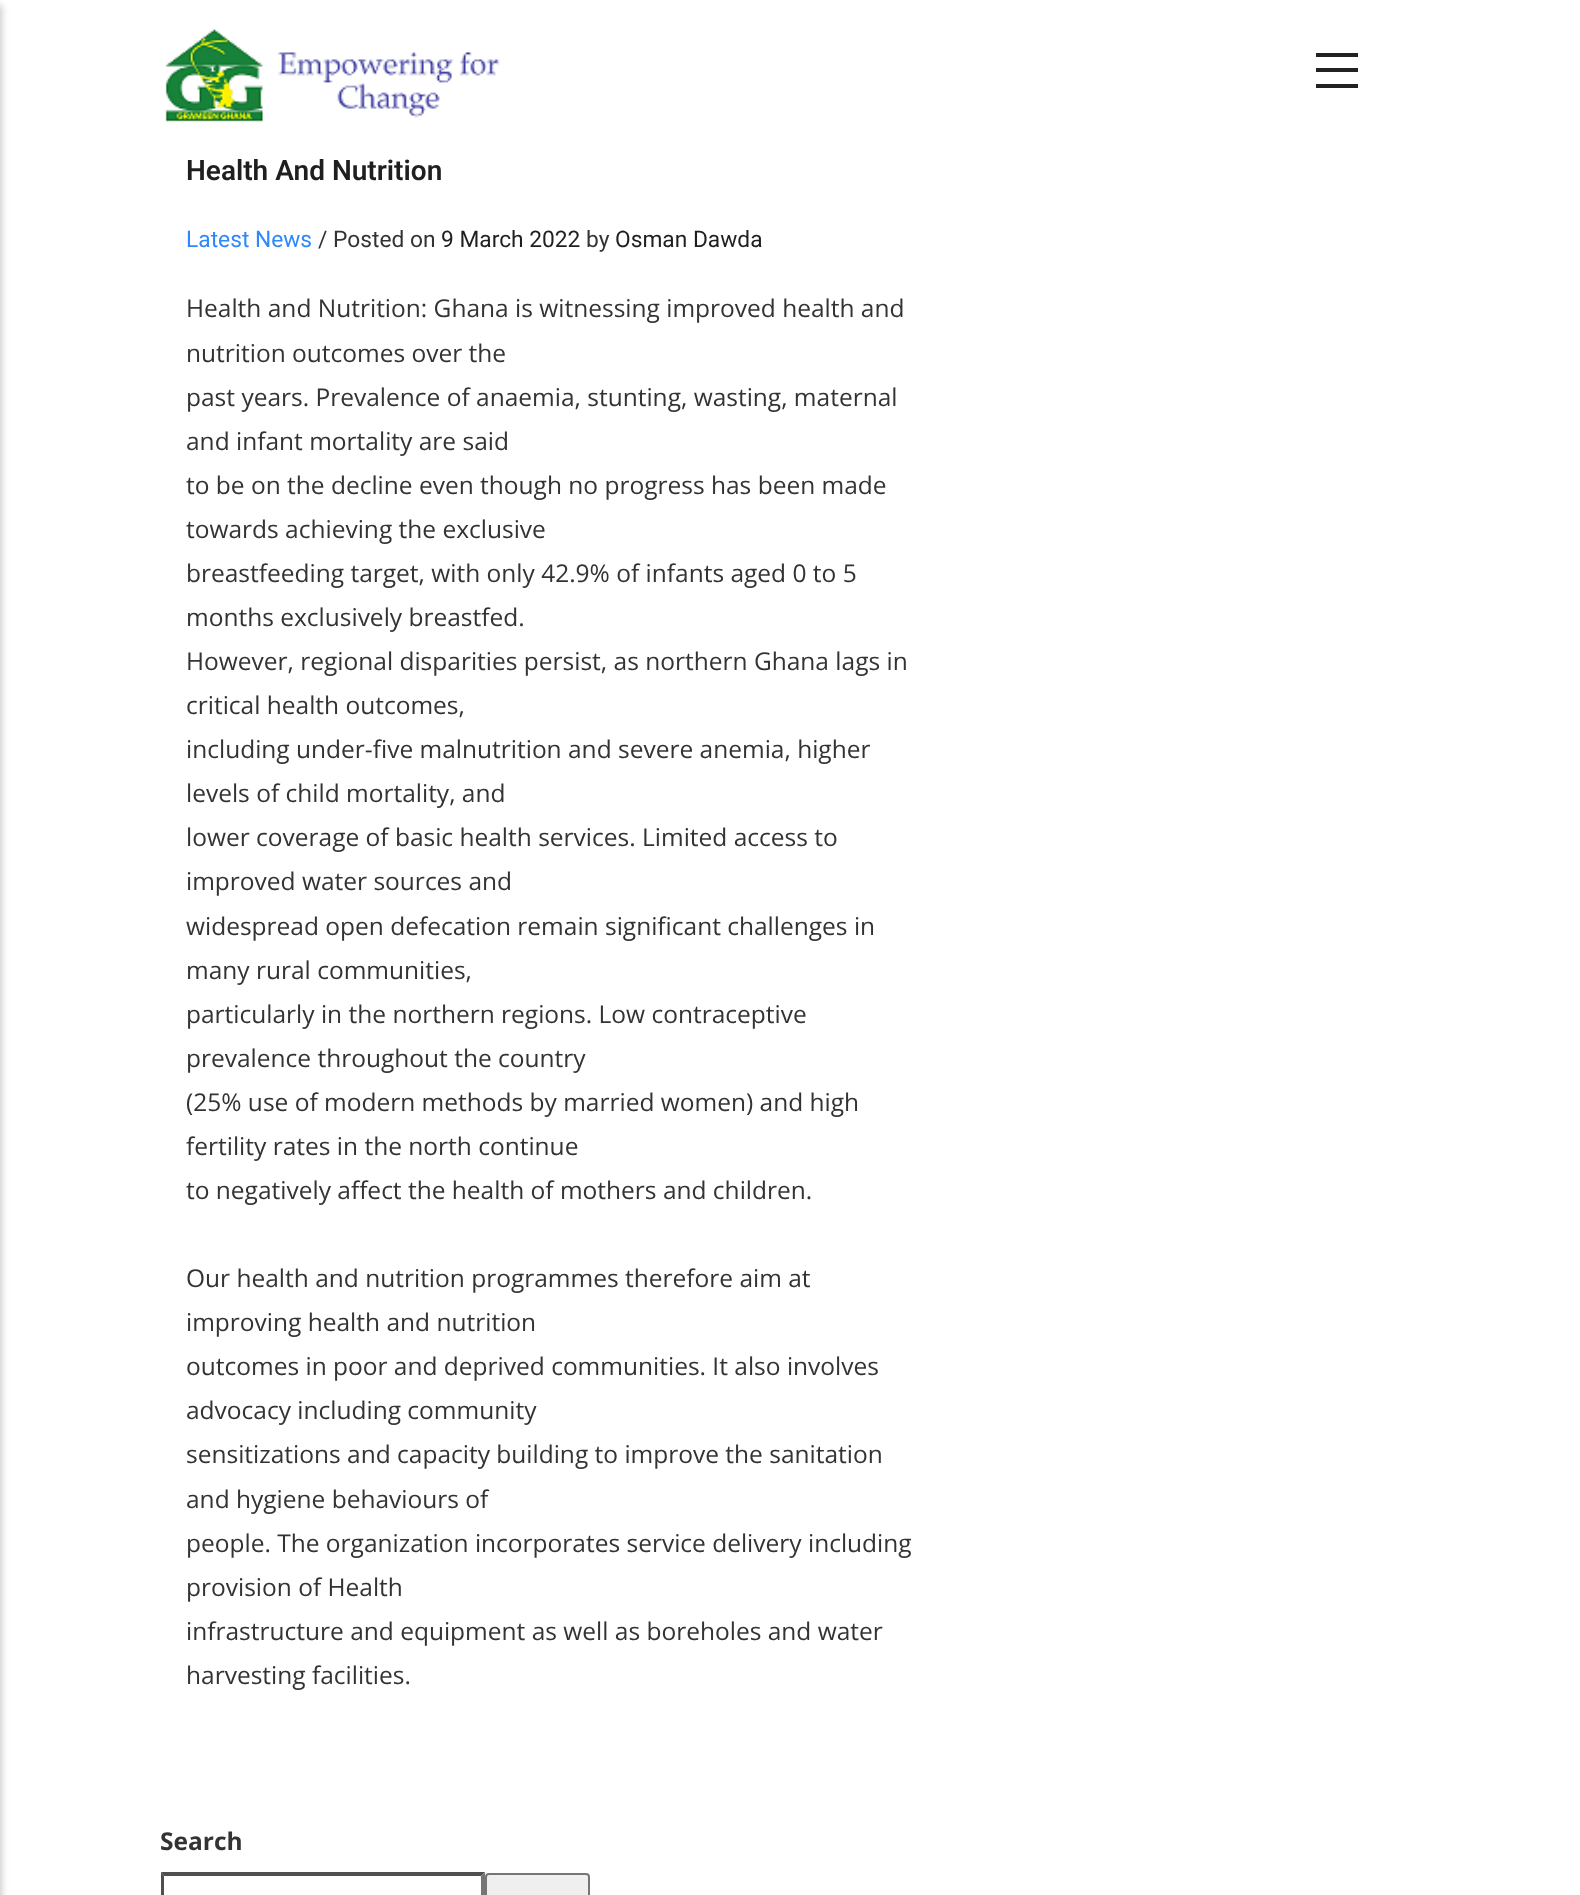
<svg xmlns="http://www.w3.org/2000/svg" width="1580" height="1895">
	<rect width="100%" height="100%" fill="#FFFFFF" />
	<rect x="-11" y="5" width="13" height="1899" fill="#000000" fill-opacity="0.2" filter="blur(3.5px)" />
	<rect x="1316" y="53" width="42" height="4" fill="#222222" />
	<rect x="1316" y="68" width="42" height="4" fill="#222222" />
	<rect x="1316" y="84" width="42" height="4" fill="#222222" />
	<image x="164" y="29" width="336" height="93" href="assets/img1.png" />
	<text x="186" y="180" font-family="Roboto" font-size="28" font-weight="600" fill="#1F1F1F">Health And Nutrition</text>
	<text x="186" y="247" font-family="Roboto" font-size="22.75" fill="#2D89FB">Latest News</text>
	<text x="318" y="247" font-family="Roboto" font-size="22.75" fill="#333333">/ Posted on</text>
	<text x="441" y="247" font-family="Roboto" font-size="22.75" fill="#1F1F1F">9 March 2022</text>
	<text x="586" y="247" font-family="Roboto" font-size="22.75" fill="#333333">by</text>
	<text x="615" y="247" font-family="Roboto" font-size="22.75" fill="#1F1F1F">Osman Dawda</text>
	<g font-family="Open Sans" font-size="24.5" fill="#333333">
		<text x="186" y="317">Health and Nutrition: Ghana is witnessing improved health and</text>
		<text x="186" y="362">nutrition outcomes over the</text>
		<text x="186" y="406">past years. Prevalence of anaemia, stunting, wasting, maternal</text>
		<text x="186" y="450">and infant mortality are said</text>
		<text x="186" y="494">to be on the decline even though no progress has been made</text>
		<text x="186" y="538">towards achieving the exclusive</text>
		<text x="186" y="582">breastfeeding target, with only 42.9% of infants aged 0 to 5</text>
		<text x="186" y="626">months exclusively breastfed.</text>
		<text x="186" y="670">However, regional disparities persist, as northern Ghana lags in</text>
		<text x="186" y="714">critical health outcomes,</text>
		<text x="186" y="758">including under-five malnutrition and severe anemia, higher</text>
		<text x="186" y="802">levels of child mortality, and</text>
		<text x="186" y="846">lower coverage of basic health services. Limited access to</text>
		<text x="186" y="890">improved water sources and</text>
		<text x="186" y="935">widespread open defecation remain significant challenges in</text>
		<text x="186" y="979">many rural communities,</text>
		<text x="186" y="1023">particularly in the northern regions. Low contraceptive</text>
		<text x="186" y="1067">prevalence throughout the country</text>
		<text x="186" y="1111">(25% use of modern methods by married women) and high</text>
		<text x="186" y="1155">fertility rates in the north continue</text>
		<text x="186" y="1199">to negatively affect the health of mothers and children.</text>
		<text x="186" y="1287">Our health and nutrition programmes therefore aim at</text>
		<text x="186" y="1331">improving health and nutrition</text>
		<text x="186" y="1375">outcomes in poor and deprived communities. It also involves</text>
		<text x="186" y="1419">advocacy including community</text>
		<text x="186" y="1463">sensitizations and capacity building to improve the sanitation</text>
		<text x="186" y="1508">and hygiene behaviours of</text>
		<text x="186" y="1552">people. The organization incorporates service delivery including</text>
		<text x="186" y="1596">provision of Health</text>
		<text x="186" y="1640">infrastructure and equipment as well as boreholes and water</text>
		<text x="186" y="1684">harvesting facilities.</text>
	</g>
	<text x="160" y="1850" font-family="Open Sans" font-size="24.5" font-weight="700" fill="#333333">Search</text>
	<path d="M161 1872H485L481 1876H164Z" fill="#4F4F4F" />
	<path d="M485 1872V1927L481 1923V1876Z" fill="#767676" />
	<path d="M161 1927V1872L164 1876V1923Z" fill="#4F4F4F" />
	<rect x="486" y="1874" width="103" height="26" rx="3" fill="#EFEFEF" stroke="#767676" stroke-width="2" />
</svg>
